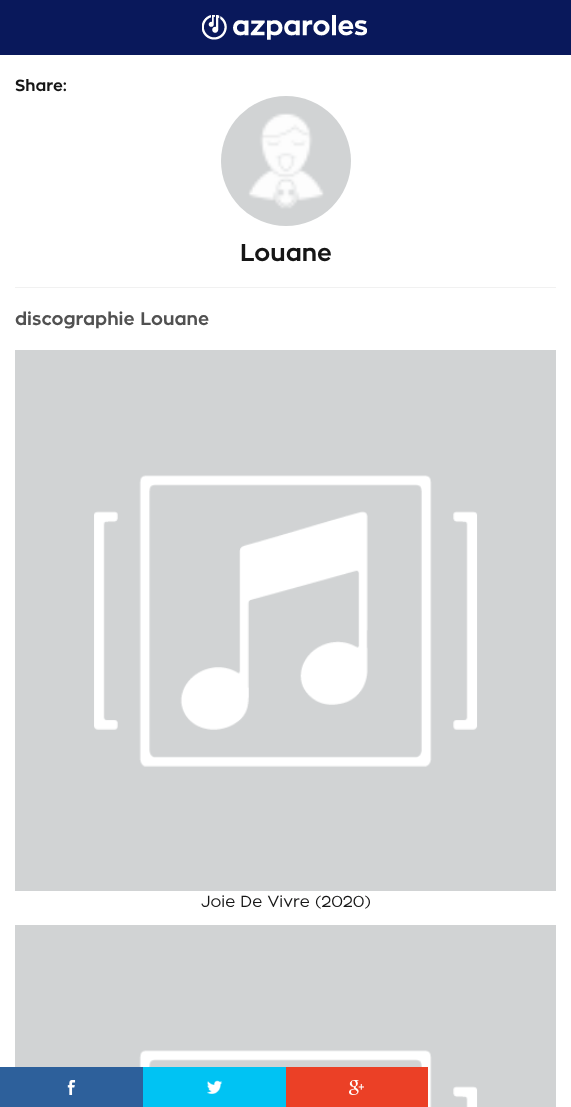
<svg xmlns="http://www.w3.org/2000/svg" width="571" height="1107">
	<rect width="100%" height="100%" fill="#FFFFFF" />
	<rect x="0" y="0" width="571" height="55" fill="#09185B" />
	<image x="202" y="15" width="165" height="25" href="assets/img1.png" />
	<text x="15" y="91" font-family="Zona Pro" font-size="16" font-weight="700" fill="#161616">Share:</text>
	<image x="221" y="96" width="130" height="130" href="assets/img2.png" />
	<rect x="15" y="287" width="541" height="1" fill="#F1F1F1" />
	<text x="240" y="261" font-family="Zona Pro" font-size="24" font-weight="700" fill="#161616">Louane</text>
	<text x="15" y="325" font-family="Zona Pro" font-size="18" font-weight="700" fill="#515151">discographie Louane</text>
	<image x="15" y="350" width="541" height="541" href="assets/img3.png" />
	<text x="201" y="907" font-family="Zona Pro" font-size="16" fill="#161616">Joie De Vivre (2020)</text>
	<image x="15" y="925" width="541" height="182" href="assets/img4.png" />
	<rect x="0" y="1067" width="143" height="40" fill="#2D609B" />
	<image x="67" y="1080" width="9" height="15" href="assets/img5.png" />
	<rect x="143" y="1067" width="143" height="40" fill="#00C3F3" />
	<image x="207" y="1080" width="16" height="14" href="assets/img6.png" />
	<rect x="286" y="1067" width="142" height="40" fill="#EB4026" />
	<image x="349" y="1080" width="15" height="15" href="assets/img7.png" />
</svg>
